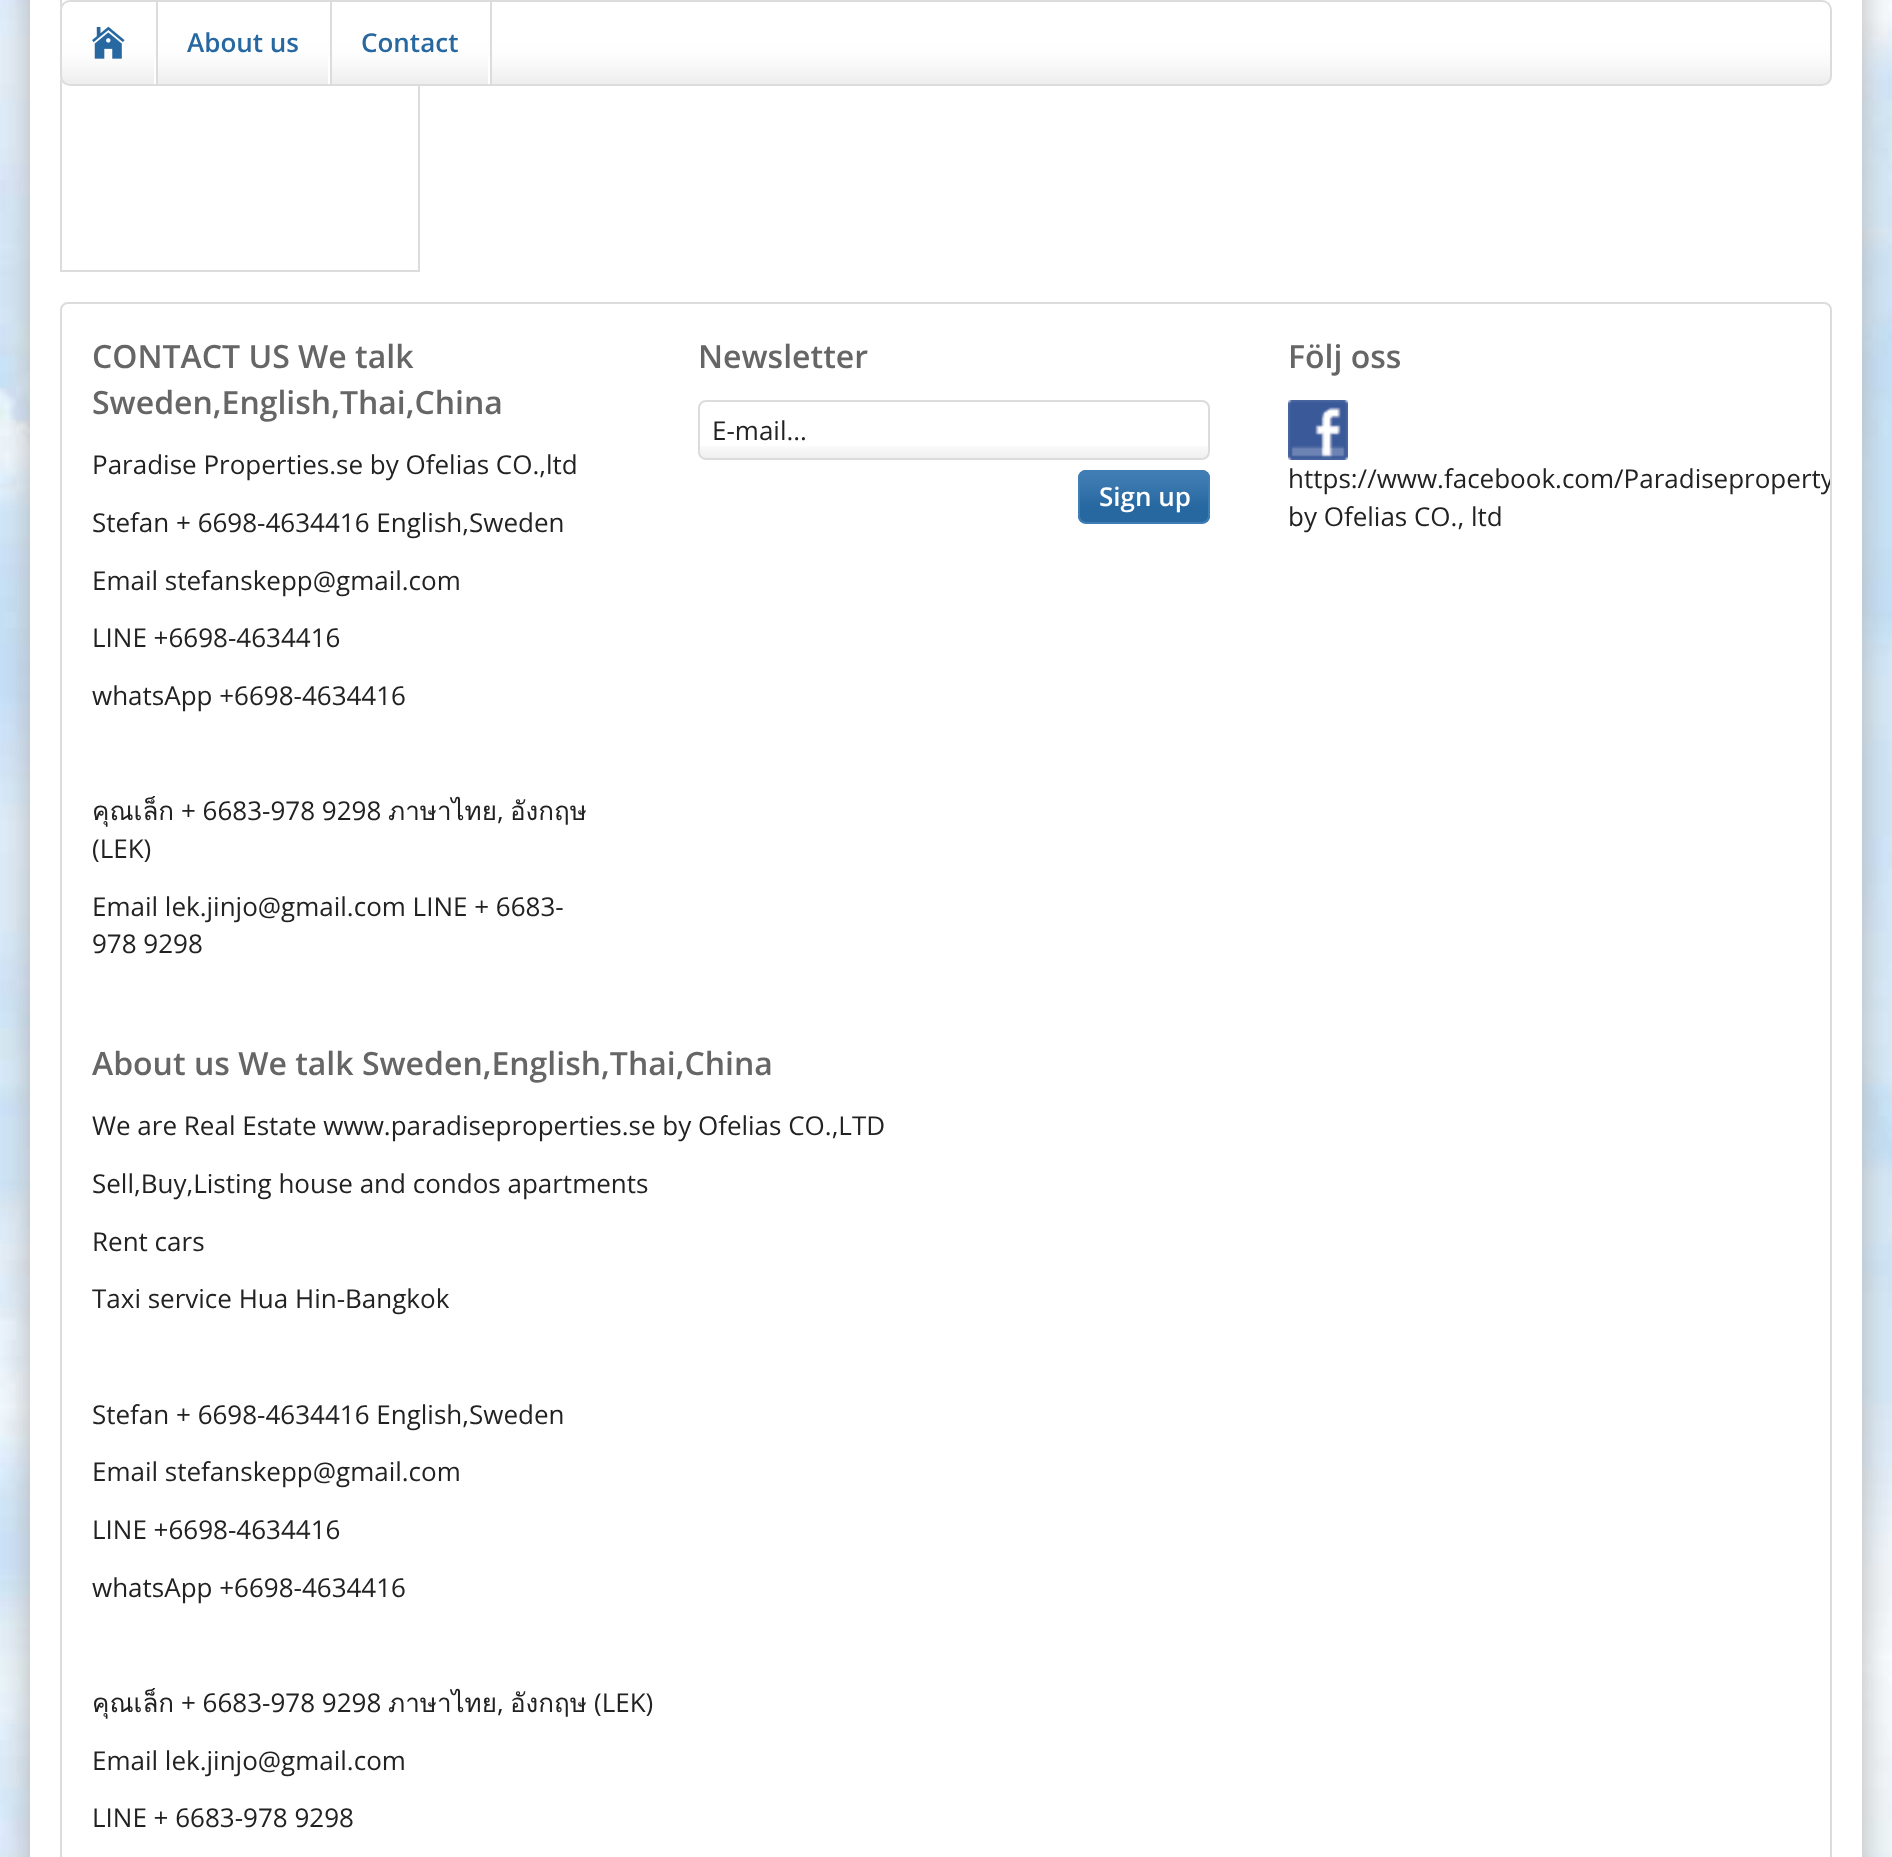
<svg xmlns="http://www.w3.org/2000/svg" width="1892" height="1857">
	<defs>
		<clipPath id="clip1"><rect x="62" y="304" width="1768" height="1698" rx="6" /></clipPath>
		<clipPath id="clip2"><rect x="92" y="1040" width="1708" height="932" /></clipPath>
	</defs>
	<rect width="100%" height="100%" fill="#FFFFFF" />
	<image x="0" y="0" width="1892" height="1857" href="assets/img1.png" />
	<rect x="30" y="-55" width="1832" height="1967" rx="10" fill="#B5B5B5" filter="blur(15px)" />
	<rect x="30" y="0" width="1832" height="1857" fill="#FFFFFF" />
	<rect x="418" y="86" width="2" height="186" fill="#DCDCDC" />
	<rect x="60" y="270" width="360" height="2" fill="#DCDCDC" />
	<rect x="60" y="0" width="2" height="272" fill="#DCDCDC" />
	<rect x="60" y="0" width="1772" height="86" rx="10" fill="#FFFFFF" />
	<image x="60" y="6" width="1772" height="78" href="assets/img2.png" />
	<rect x="61" y="1" width="1770" height="84" rx="9" fill="none" stroke="#DCDCDC" stroke-width="2" />
	<rect x="156" y="2" width="2" height="82" fill="#DCDCDC" />
	<rect x="154" y="56" width="2" height="28" fill="#FFFFFF" />
	<image x="92" y="26" width="33" height="33" href="assets/img3.png" />
	<rect x="330" y="2" width="2" height="82" fill="#DCDCDC" />
	<rect x="328" y="56" width="2" height="28" fill="#FFFFFF" />
	<text x="187" y="52" font-family="Open Sans" font-size="26" font-weight="600" fill="#2768A1">About us</text>
	<rect x="490" y="2" width="2" height="82" fill="#DCDCDC" />
	<rect x="488" y="56" width="2" height="28" fill="#FFFFFF" />
	<text x="361" y="52" font-family="Open Sans" font-size="26" font-weight="600" fill="#2768A1">Contact</text>
	<rect x="61" y="303" width="1770" height="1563" rx="7" fill="none" stroke="#DCDCDC" stroke-width="2" />
	<g font-family="Open Sans" font-size="32" font-weight="600" fill="#666666">
		<text x="92" y="368">CONTACT US We talk</text>
		<text x="92" y="414">Sweden,English,Thai,China</text>
	</g>
	<g font-family="Open Sans" font-size="26" fill="#222222">
		<text x="92" y="474">Paradise Properties.se by Ofelias CO.,ltd</text>
		<text x="92" y="532">Stefan + 6698-4634416 English,Sweden</text>
		<text x="92" y="590">Email stefanskepp@gmail.com</text>
		<text x="92" y="647">LINE +6698-4634416</text>
		<text x="92" y="705">whatsApp +6698-4634416</text>
	</g>
	<text x="92" y="820" font-family="Loma" font-size="26" fill="#222222">คุณเล็ก</text>
	<text x="181" y="820" font-family="Open Sans" font-size="26" fill="#222222">+ 6683-978 9298</text>
	<text x="388" y="820" font-family="Loma" font-size="26" fill="#222222">ภาษาไทย</text>
	<text x="497" y="820" font-family="Open Sans" font-size="26" fill="#222222">,</text>
	<text x="510" y="820" font-family="Loma" font-size="26" fill="#222222">อังกฤษ</text>
	<g font-family="Open Sans" font-size="26" fill="#222222">
		<text x="92" y="858">(LEK)</text>
		<text x="92" y="916">Email lek.jinjo@gmail.com LINE + 6683-</text>
		<text x="92" y="953">978 9298</text>
	</g>
	<text x="698" y="368" font-family="Open Sans" font-size="32" font-weight="600" fill="#666666">Newsletter</text>
	<image x="698" y="446" width="512" height="12" href="assets/img4.png" />
	<rect x="699" y="401" width="510" height="58" rx="7" fill="none" stroke="#DCDCDC" stroke-width="2" />
	<text x="712" y="440" font-family="Open Sans" font-size="26" fill="#222222">E-mail...</text>
	<image x="1078" y="470" width="132" height="52" href="assets/img5.png" />
	<rect x="1079" y="471" width="130" height="52" rx="7" fill="none" stroke="#407DB4" stroke-width="2" />
	<text x="1099" y="506" font-family="Open Sans" font-size="26" font-weight="600" fill="#FFFFFF">Sign up</text>
	<text x="1288" y="368" font-family="Open Sans" font-size="32" font-weight="600" fill="#666666">Följ oss</text>
	<image x="1288" y="400" width="60" height="60" href="assets/img6.png" />
	<g clip-path="url(#clip1)">
		<text x="1288" y="488" font-family="Open Sans" font-size="26" fill="#222222">https://www.facebook.com/Paradiseproperty</text>
	</g>
	<text x="1288" y="526" font-family="Open Sans" font-size="26" fill="#222222">by Ofelias CO., ltd</text>
	<text x="92" y="1075" font-family="Open Sans" font-size="32" font-weight="600" fill="#666666">About us We talk Sweden,English,Thai,China</text>
	<g font-family="Open Sans" font-size="26" fill="#222222">
		<text x="92" y="1135">We are Real Estate www.paradiseproperties.se by Ofelias CO.,LTD</text>
		<text x="92" y="1193">Sell,Buy,Listing house and condos apartments</text>
		<text x="92" y="1251">Rent cars</text>
		<text x="92" y="1308">Taxi service Hua Hin-Bangkok</text>
		<text x="92" y="1424">Stefan + 6698-4634416 English,Sweden</text>
		<text x="92" y="1481">Email stefanskepp@gmail.com</text>
		<text x="92" y="1539">LINE +6698-4634416</text>
		<text x="92" y="1597">whatsApp +6698-4634416</text>
	</g>
	<g clip-path="url(#clip2)">
		<text x="92" y="1712" font-family="Loma" font-size="26" fill="#222222">คุณเล็ก</text>
	</g>
	<text x="181" y="1712" font-family="Open Sans" font-size="26" fill="#222222">+ 6683-978 9298</text>
	<text x="388" y="1712" font-family="Loma" font-size="26" fill="#222222">ภาษาไทย</text>
	<text x="497" y="1712" font-family="Open Sans" font-size="26" fill="#222222">,</text>
	<text x="510" y="1712" font-family="Loma" font-size="26" fill="#222222">อังกฤษ</text>
	<g font-family="Open Sans" font-size="26" fill="#222222">
		<text x="594" y="1712">(LEK)</text>
		<text x="92" y="1770">Email lek.jinjo@gmail.com</text>
		<text x="92" y="1827">LINE + 6683-978 9298</text>
	</g>
</svg>
